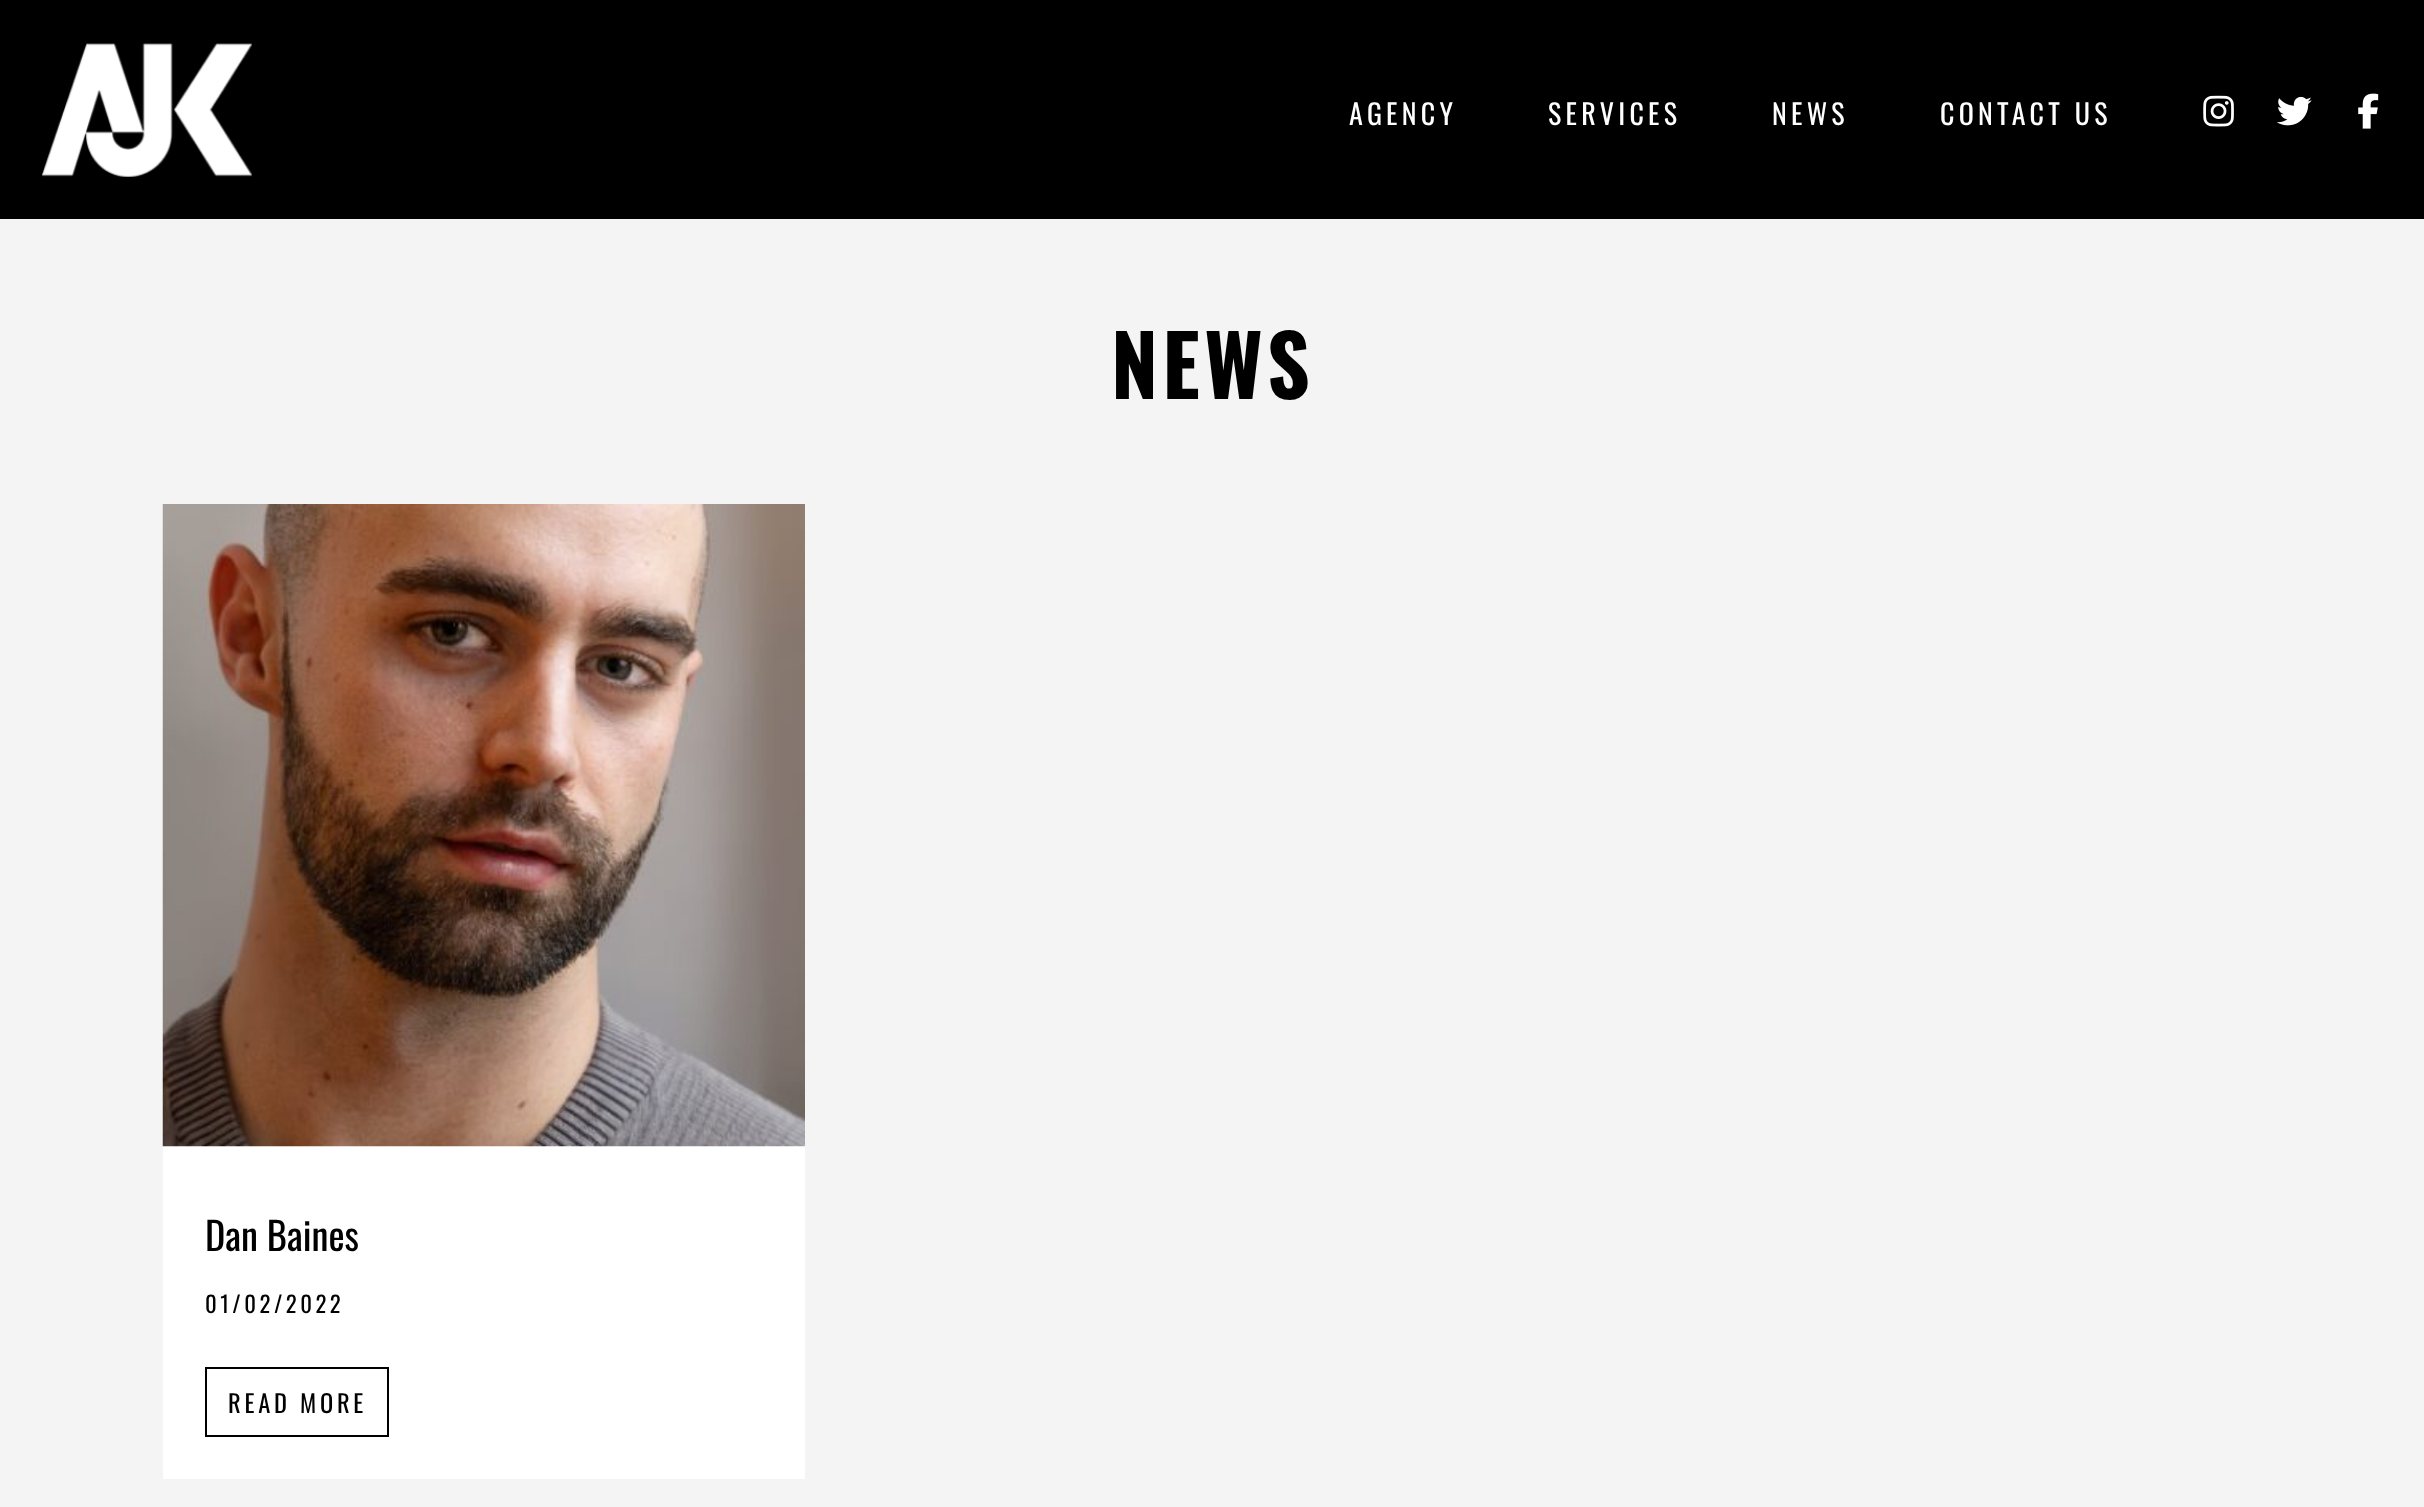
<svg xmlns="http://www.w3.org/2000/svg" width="2424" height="1507">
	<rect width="100%" height="100%" fill="#F4F4F4" />
	<rect x="0" y="0" width="2424" height="219" fill="#000000" />
	<image x="42" y="43" width="210" height="134" href="assets/img1.png" />
	<g font-family="Oswald" font-size="28" letter-spacing="4.25" fill="#FFFFFF">
		<text x="1349" y="125">AGENCY</text>
		<text x="1548" y="125">SERVICES</text>
		<text x="1772" y="125">NEWS</text>
		<text x="1940" y="125">CONTACT US</text>
	</g>
	<image x="2203" y="95" width="31" height="32" href="assets/img2.png" />
	<image x="2277" y="96" width="35" height="30" href="assets/img3.png" />
	<image x="2358" y="93" width="21" height="36" href="assets/img4.png" />
	<text x="1111" y="399" font-family="Oswald" font-size="84" font-weight="700" letter-spacing="4.25" fill="#000000">NEWS</text>
	<rect x="163" y="1146" width="642" height="333" fill="#FFFFFF" />
	<image x="162" y="504" width="643" height="643" href="assets/img5.png" />
	<text x="205" y="1251" font-family="Oswald" font-size="38.5" fill="#000000">Dan Baines</text>
	<text x="205" y="1313" font-family="Oswald" font-size="22.75" letter-spacing="3.5" fill="#000000">01/02/2022</text>
	<rect x="206" y="1368" width="182" height="68" fill="none" stroke="#000000" stroke-width="2" />
	<text x="228" y="1413" font-family="Oswald" font-size="24.5" letter-spacing="3.75" fill="#000000">READ MORE</text>
</svg>
